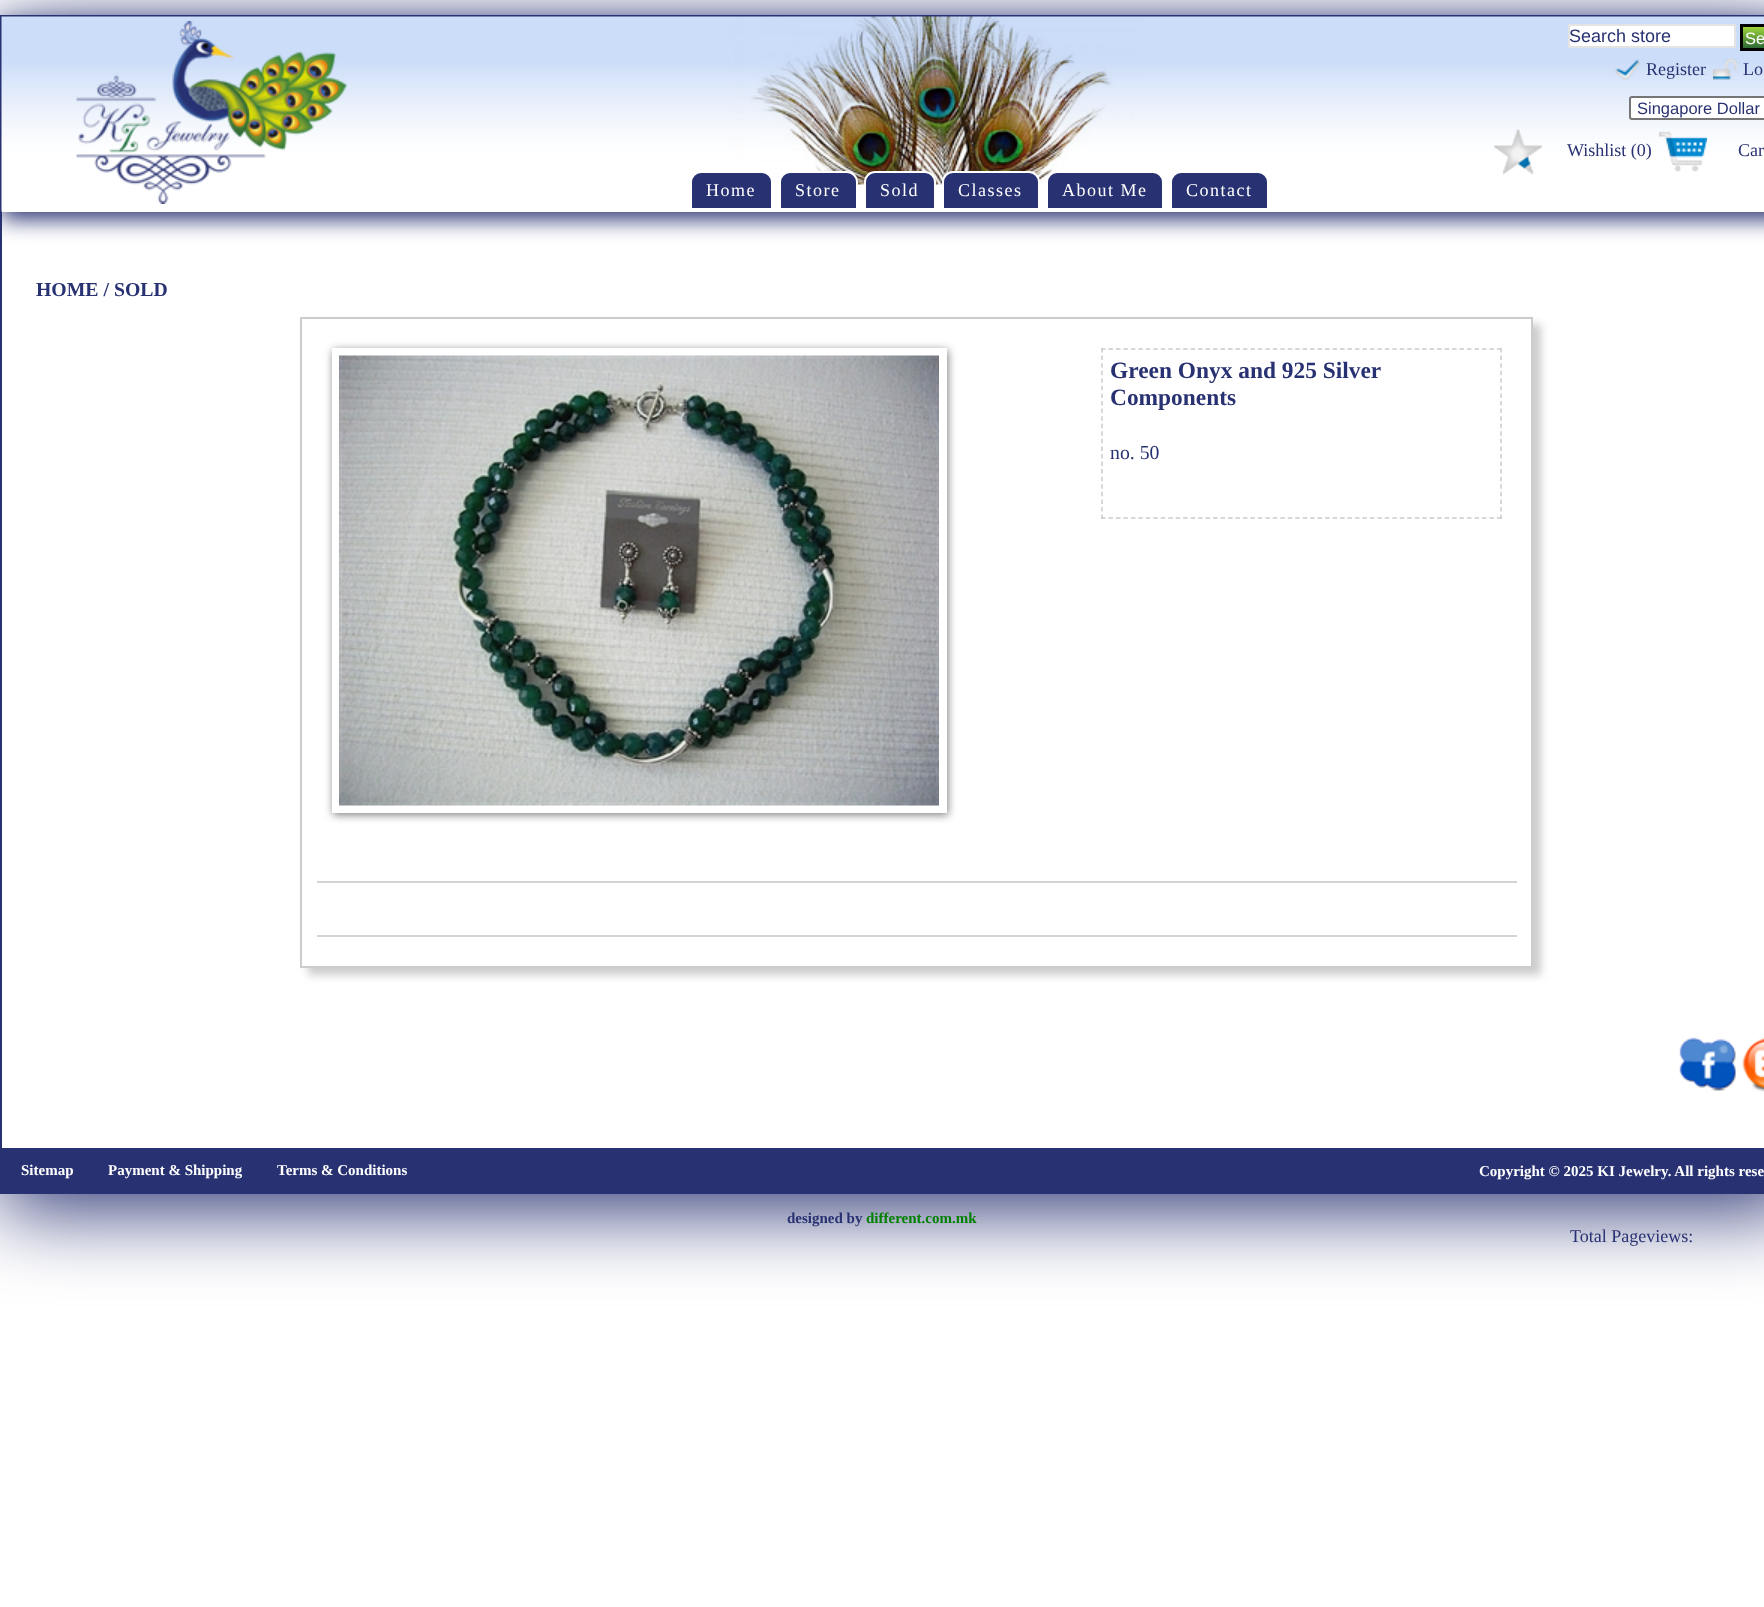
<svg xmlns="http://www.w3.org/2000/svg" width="1764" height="1607">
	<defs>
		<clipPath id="clip1"><path d="M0 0H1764V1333H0ZM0 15H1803V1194H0Z" clip-rule="evenodd" /></clipPath>
		<linearGradient id="g1" gradientUnits="userSpaceOnUse" x1="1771" y1="27" x2="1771" y2="48"><stop offset="0" stop-color="#80C217" /><stop offset="0" stop-color="#9DD53A" /><stop offset="1" stop-color="#2D6A35" /></linearGradient>
		<clipPath id="clip2"><path d="M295 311H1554V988H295ZM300 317H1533V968H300Z" clip-rule="evenodd" /></clipPath>
	</defs>
	<rect width="100%" height="100%" fill="#FFFFFF" />
	<g clip-path="url(#clip1)">
		<rect x="0" y="30" width="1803" height="1179" fill="#283272" filter="blur(41px)" />
	</g>
	<rect x="1" y="16" width="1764" height="1177" fill="none" stroke="#283272" stroke-width="2" />
	<rect x="2" y="24" width="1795" height="195" fill="#283272" filter="blur(11px)" />
	<rect x="2" y="211" width="1762" height="1" fill="#FFFFFF" />
	<image x="1" y="16" width="1763" height="196" href="assets/img1.png" />
	<rect x="1569" y="25" width="166" height="22" fill="#FFFFFF" stroke="#E3E3E3" stroke-width="2" />
	<text x="1569" y="42" font-family="Liberation Sans" font-size="18" fill="#283272">Search store</text>
	<rect x="1743" y="27" width="21" height="21" fill="url(#g1)" />
	<rect x="1741.5" y="25.5" width="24" height="24" fill="none" stroke="#000000" stroke-width="3" />
	<text x="1745" y="44" font-family="Liberation Sans" font-size="16.5" fill="#FFFFFF">Se</text>
	<image x="1615" y="59" width="25" height="21" href="assets/img2.png" />
	<text x="1646" y="75" font-family="Liberation Serif" font-size="18" fill="#283272">Register</text>
	<image x="1713" y="58" width="24" height="22" href="assets/img3.png" />
	<text x="1743" y="75" font-family="Liberation Serif" font-size="18" fill="#283272">Lo</text>
	<rect x="1630" y="97" width="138" height="22" rx="2" fill="#FFFFFF" stroke="#767676" stroke-width="2" />
	<text x="1637" y="114" font-family="Liberation Sans" font-size="16.5" fill="#283272">Singapore Dollar</text>
	<image x="1494" y="129" width="48" height="46" href="assets/img4.png" />
	<text x="1567" y="156" font-family="Liberation Serif" font-size="18" fill="#283272">Wishlist (0)</text>
	<image x="1659" y="131" width="48" height="41" href="assets/img5.png" />
	<text x="1738" y="156" font-family="Liberation Serif" font-size="18" fill="#283272">Car</text>
	<image x="76" y="21" width="271" height="183" href="assets/img6.png" />
	<path d="M701 172H762C767.5 172 772 176.5 772 182V209H691V182C691 176.5 695.5 172 701 172Z" fill="#283272" stroke="#FFFFFF" stroke-width="2" />
	<text x="706" y="196" font-family="Liberation Serif" font-size="18" letter-spacing="1.5" fill="#FFFFFF">Home</text>
	<path d="M790 172H847C852.5 172 857 176.5 857 182V209H780V182C780 176.5 784.5 172 790 172Z" fill="#283272" stroke="#FFFFFF" stroke-width="2" />
	<text x="795" y="196" font-family="Liberation Serif" font-size="18" letter-spacing="1.5" fill="#FFFFFF">Store</text>
	<path d="M875 172H925C930.5 172 935 176.5 935 182V209H865V182C865 176.5 869.5 172 875 172Z" fill="#283272" stroke="#FFFFFF" stroke-width="2" />
	<text x="880" y="196" font-family="Liberation Serif" font-size="18" letter-spacing="1.5" fill="#FFFFFF">Sold</text>
	<path d="M953 172H1029C1034.5 172 1039 176.5 1039 182V209H943V182C943 176.5 947.5 172 953 172Z" fill="#283272" stroke="#FFFFFF" stroke-width="2" />
	<text x="958" y="196" font-family="Liberation Serif" font-size="18" letter-spacing="1.5" fill="#FFFFFF">Classes</text>
	<path d="M1057 172H1153C1158.5 172 1163 176.5 1163 182V209H1047V182C1047 176.5 1051.5 172 1057 172Z" fill="#283272" stroke="#FFFFFF" stroke-width="2" />
	<text x="1062" y="196" font-family="Liberation Serif" font-size="18" letter-spacing="1.5" fill="#FFFFFF">About Me</text>
	<path d="M1181 172H1258C1263.5 172 1268 176.5 1268 182V209H1171V182C1171 176.5 1175.5 172 1181 172Z" fill="#283272" stroke="#FFFFFF" stroke-width="2" />
	<text x="1186" y="196" font-family="Liberation Serif" font-size="18" letter-spacing="1.5" fill="#FFFFFF">Contact</text>
	<text x="36" y="296" font-family="Liberation Serif" font-size="19.75" font-weight="700" fill="#283272">HOME / SOLD</text>
	<g clip-path="url(#clip2)">
		<rect x="308" y="324" width="1233" height="651" fill="#CCCCCC" filter="blur(4px)" />
	</g>
	<rect x="301" y="318" width="1231" height="649" fill="none" stroke="#CCCCCC" stroke-width="2" />
	<rect x="333" y="350" width="615" height="465" fill="#000000" fill-opacity="0.5" filter="blur(4px)" />
	<rect x="332" y="348" width="615" height="465" fill="#FFFFFF" />
	<image x="339" y="355" width="600" height="451" href="assets/img7.png" />
	<path d="M1101 349H1501.5" fill="none" stroke="#CCCCCC" stroke-width="1.5" stroke-dasharray="4.5 2.97" />
	<path d="M1501 348V519" fill="none" stroke="#CCCCCC" stroke-width="1.5" stroke-dasharray="4.5 3.07" />
	<path d="M1101 518H1501.5" fill="none" stroke="#CCCCCC" stroke-width="1.5" stroke-dasharray="4.5 2.97" />
	<path d="M1102 348V519" fill="none" stroke="#CCCCCC" stroke-width="1.5" stroke-dasharray="4.5 3.07" />
	<g font-family="Liberation Serif" font-size="23.4" font-weight="700" fill="#283272">
		<text x="1110" y="378">Green Onyx and 925 Silver</text>
		<text x="1110" y="405">Components</text>
	</g>
	<text x="1110" y="459" font-family="Liberation Serif" font-size="19.75" fill="#283272">no. 50</text>
	<rect x="317" y="881" width="1200" height="2" fill="#D3D3D3" />
	<rect x="317" y="935" width="1200" height="2" fill="#D3D3D3" />
	<image x="1679" y="1037" width="57" height="54" href="assets/img8.png" />
	<image x="1742" y="1037" width="22" height="55" href="assets/img9.png" />
	<rect x="2" y="1148" width="1762" height="44" fill="#283272" />
	<g font-family="Liberation Serif" font-size="15" font-weight="700" fill="#FFFFFF">
		<text x="21" y="1175">Sitemap</text>
		<text x="108" y="1175">Payment &amp; Shipping</text>
		<text x="277" y="1175">Terms &amp; Conditions</text>
		<text x="1479" y="1176">Copyright © 2025 KI Jewelry. All rights rese</text>
	</g>
	<text x="787" y="1223" font-family="Liberation Serif" font-size="15" font-weight="700" fill="#283272">designed by</text>
	<text x="866" y="1223" font-family="Liberation Serif" font-size="15" font-weight="700" fill="#008000">different.com.mk</text>
	<text x="1570" y="1242" font-family="Liberation Serif" font-size="18" fill="#283272">Total Pageviews:</text>
</svg>
